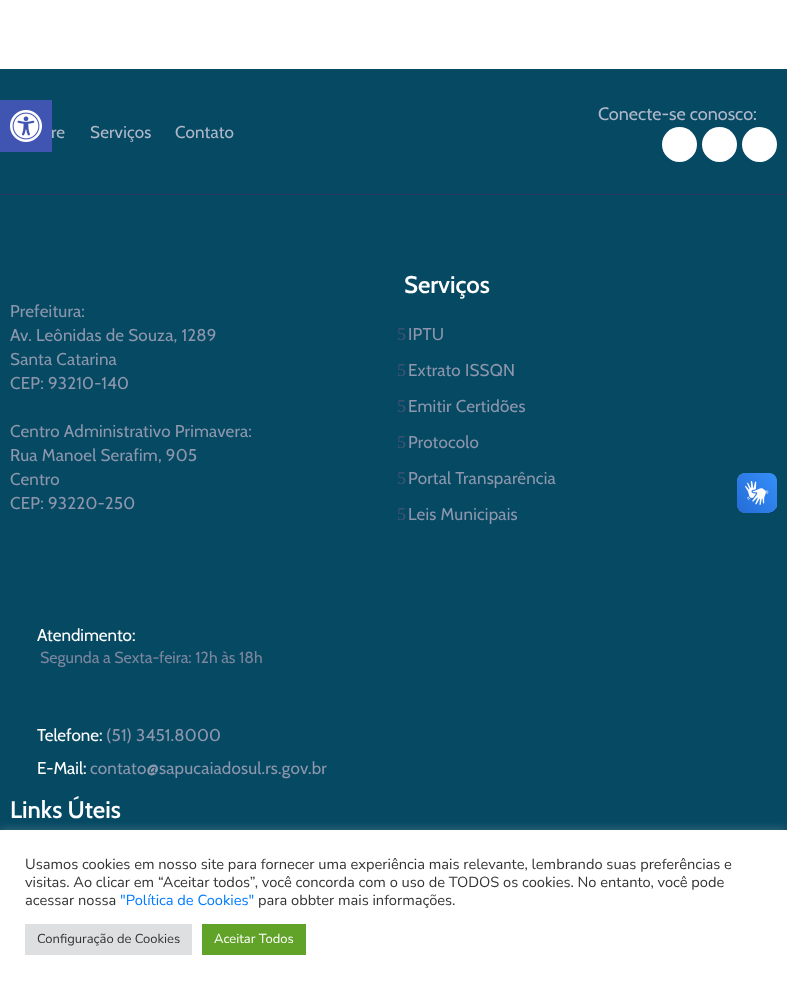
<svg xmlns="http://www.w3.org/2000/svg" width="787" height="985">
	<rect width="100%" height="100%" fill="#FFFFFF" />
	<rect x="0" y="69" width="787" height="125" fill="#064963" />
	<rect x="0" y="100" width="52" height="52" fill="#4054B2" />
	<image x="10" y="110" width="32" height="32" href="assets/img1.png" />
	<rect x="0" y="194" width="787" height="1" fill="#263A65" />
	<text x="598" y="120" font-family="Cabin" font-size="18" fill="#B0B8CA">Conecte-se conosco:</text>
	<circle cx="679.5" cy="144.5" r="17.5" fill="#FFFFFF" />
	<circle cx="719.5" cy="144.5" r="17.5" fill="#FFFFFF" />
	<circle cx="759.5" cy="144.5" r="17.5" fill="#FFFFFF" />
	<g font-family="Cabin" font-size="17" letter-spacing="0.2" fill="#B0B8CA">
		<text x="51" y="138">re</text>
		<text x="90" y="138">Serviços</text>
		<text x="175" y="138">Contato</text>
	</g>
	<rect x="0" y="195" width="787" height="635" fill="#064963" />
	<g font-family="Cabin" font-size="17" letter-spacing="0.2" fill="#8C96AC">
		<text x="10" y="317">Prefeitura:</text>
		<text x="10" y="341">Av. Leônidas de Souza, 1289</text>
		<text x="10" y="365">Santa Catarina</text>
		<text x="10" y="389">CEP: 93210-140</text>
		<text x="10" y="437">Centro Administrativo Primavera:</text>
		<text x="10" y="461">Rua Manoel Serafim, 905</text>
		<text x="10" y="485">Centro</text>
		<text x="10" y="509">CEP: 93220-250</text>
	</g>
	<text x="37" y="641" font-family="Cabin" font-size="17" fill="#FFFFFF">Atendimento:</text>
	<text x="40" y="663" font-family="Cabin" font-size="16" fill="#7B859D">Segunda a Sexta-feira: 12h às 18h</text>
	<text x="37" y="741" font-family="Cabin" font-size="17" fill="#FFFFFF">Telefone:</text>
	<text x="106" y="741" font-family="Cabin" font-size="17" letter-spacing="0.2" fill="#8C96AC">(51) 3451.8000</text>
	<text x="37" y="774" font-family="Cabin" font-size="17" fill="#FFFFFF">E-Mail:</text>
	<text x="90" y="774" font-family="Cabin" font-size="17" letter-spacing="0.2" fill="#8C96AC">contato@sapucaiadosul.rs.gov.br</text>
	<text x="404" y="293" font-family="Cabin" font-size="24" font-weight="600" fill="#FFFFFF">Serviços</text>
	<text x="397" y="340" font-family="Liberation Serif" font-size="18" letter-spacing="0.2" fill="#455476">5</text>
	<text x="408" y="340" font-family="Cabin" font-size="17" letter-spacing="0.2" fill="#8C96AC">IPTU</text>
	<text x="397" y="376" font-family="Liberation Serif" font-size="18" letter-spacing="0.2" fill="#455476">5</text>
	<text x="408" y="376" font-family="Cabin" font-size="17" letter-spacing="0.2" fill="#8C96AC">Extrato ISSQN</text>
	<text x="397" y="412" font-family="Liberation Serif" font-size="18" letter-spacing="0.2" fill="#455476">5</text>
	<text x="408" y="412" font-family="Cabin" font-size="17" letter-spacing="0.2" fill="#8C96AC">Emitir Certidões</text>
	<text x="397" y="448" font-family="Liberation Serif" font-size="18" letter-spacing="0.2" fill="#455476">5</text>
	<text x="408" y="448" font-family="Cabin" font-size="17" letter-spacing="0.2" fill="#8C96AC">Protocolo</text>
	<text x="397" y="484" font-family="Liberation Serif" font-size="18" letter-spacing="0.2" fill="#455476">5</text>
	<text x="408" y="484" font-family="Cabin" font-size="17" letter-spacing="0.2" fill="#8C96AC">Portal Transparência</text>
	<text x="397" y="520" font-family="Liberation Serif" font-size="18" letter-spacing="0.2" fill="#455476">5</text>
	<text x="408" y="520" font-family="Cabin" font-size="17" letter-spacing="0.2" fill="#8C96AC">Leis Municipais</text>
	<text x="10" y="818" font-family="Cabin" font-size="24" font-weight="600" fill="#FFFFFF">Links Úteis</text>
	<image x="737" y="473" width="40" height="40" href="assets/img2.png" />
	<image x="737" y="473" width="40" height="40" href="assets/img3.png" />
	<rect x="0" y="829" width="787" height="155" fill="#ACABAB" fill-opacity="0.3" filter="blur(5px)" />
	<rect x="0" y="830" width="787" height="155" fill="#FFFFFF" />
	<g font-family="Nunito Sans" font-size="14.65" fill="#333333">
		<text x="25" y="869">Usamos cookies em nosso site para fornecer uma experiência mais relevante, lembrando suas preferências e</text>
		<text x="25" y="887">visitas. Ao clicar em “Aceitar todos”, você concorda com o uso de TODOS os cookies. No entanto, você pode</text>
		<text x="25" y="905">acessar nossa</text>
	</g>
	<text x="120" y="905" font-family="Nunito Sans" font-size="14.65" fill="#007BFF">"Política de Cookies"</text>
	<text x="258" y="905" font-family="Nunito Sans" font-size="14.65" fill="#333333">para obbter mais informações.</text>
	<rect x="25" y="924" width="167" height="31" fill="#DEDFE0" />
	<text x="37" y="943" font-family="Nunito Sans" font-size="13" fill="#333333">Configuração de Cookies</text>
	<rect x="202" y="924" width="104" height="31" fill="#61A229" />
	<text x="214" y="943" font-family="Nunito Sans" font-size="13" fill="#FFFFFF">Aceitar Todos</text>
</svg>
